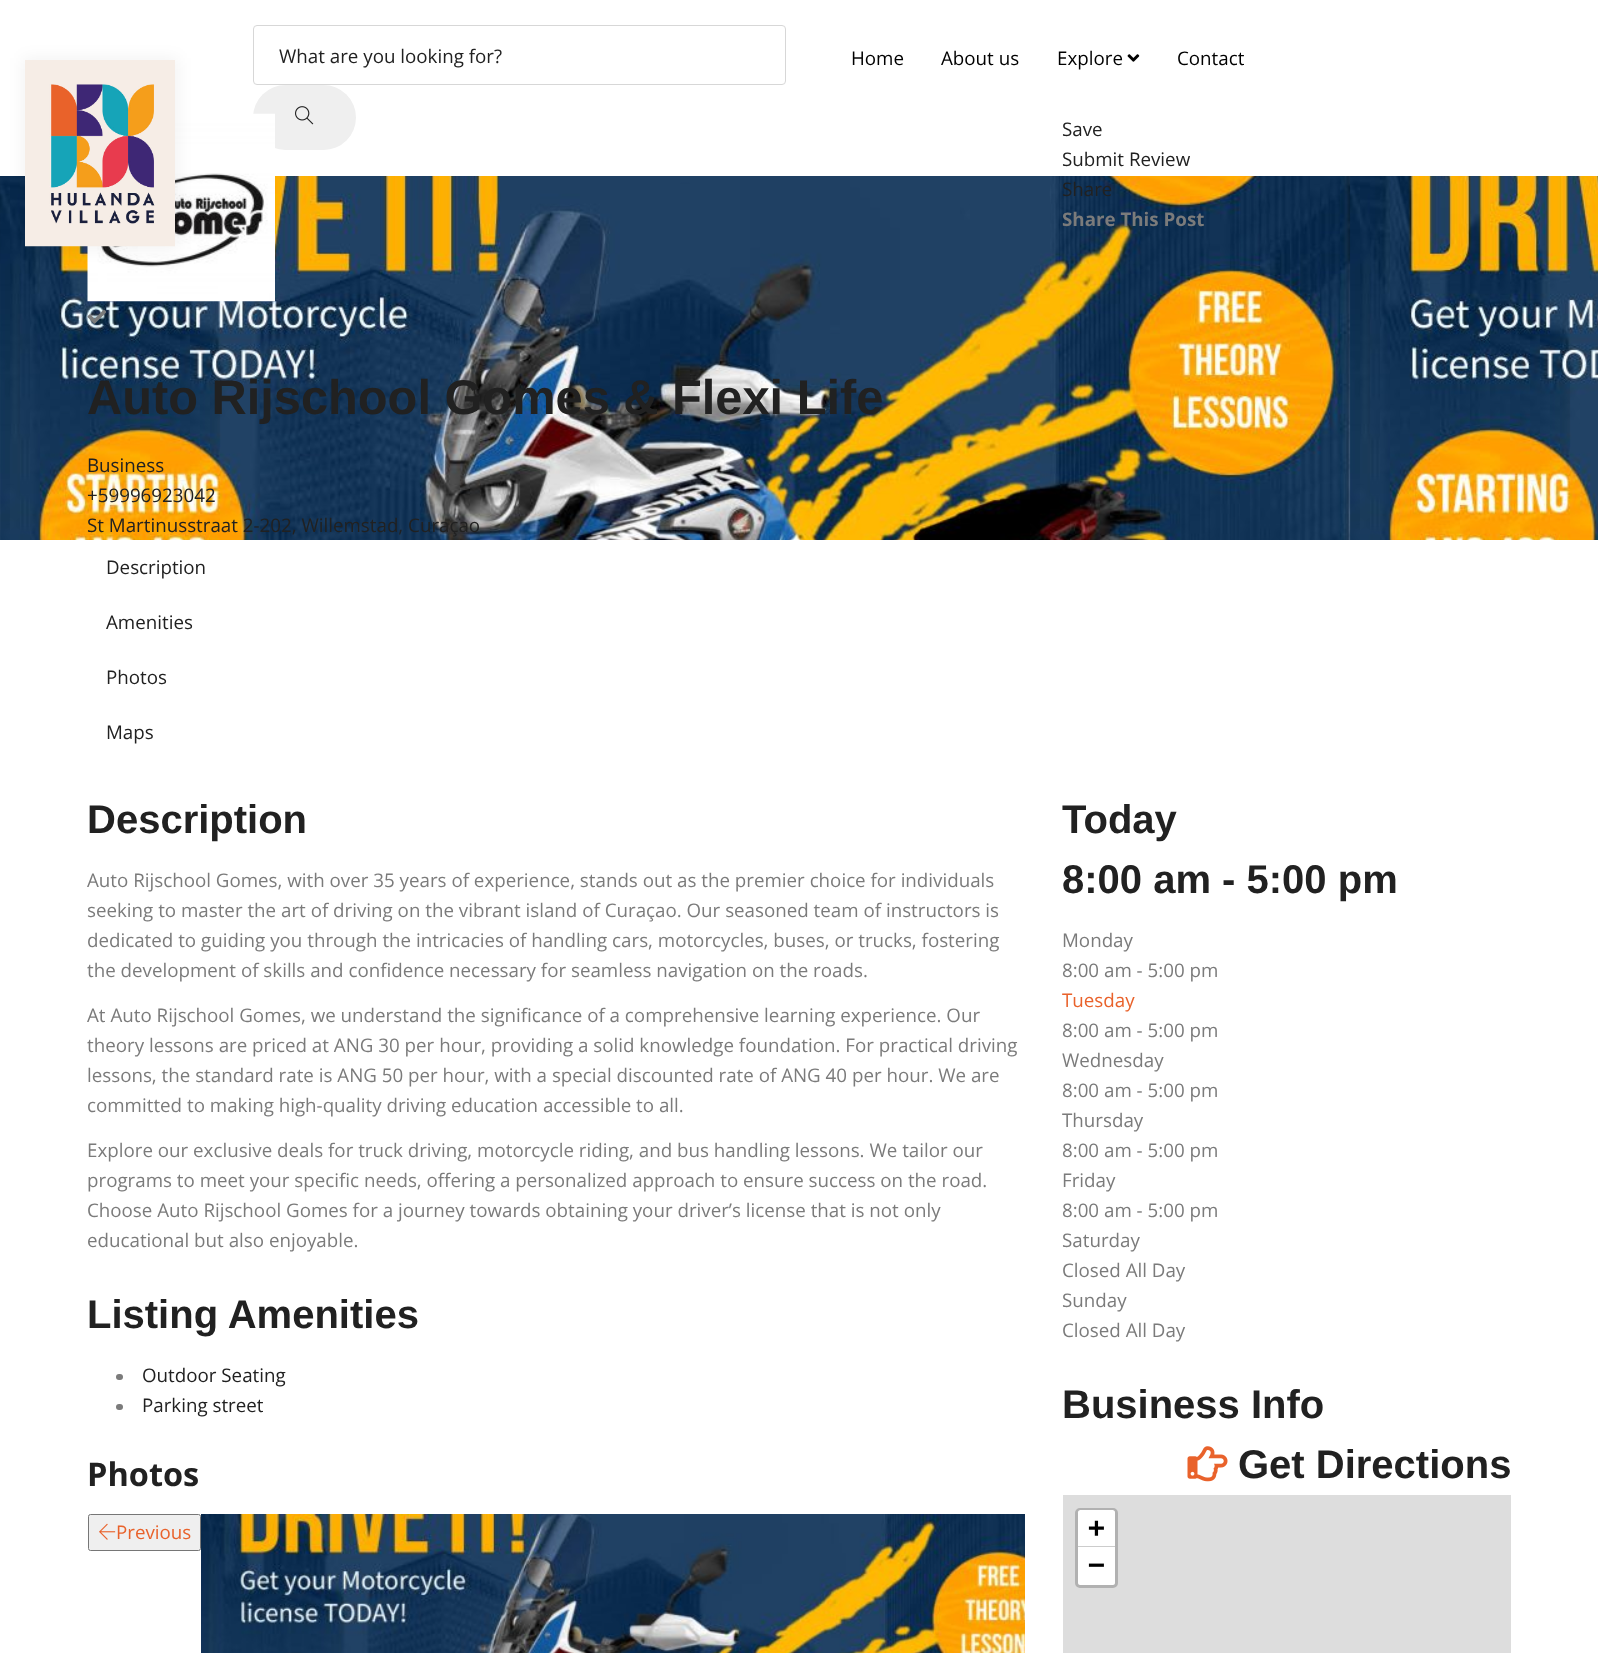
<svg xmlns="http://www.w3.org/2000/svg" width="1598" height="1653">
	<rect width="100%" height="100%" fill="#FFFFFF" />
	<image x="0" y="176" width="1598" height="364" href="assets/img4.png" />
	<rect x="253" y="85" width="103" height="65" rx="32.5" fill="#EFEFEF" />
	<image x="87" y="113" width="188" height="189" href="assets/img5.png" />
	<rect x="23" y="58" width="155" height="191" fill="#000000" fill-opacity="0.05" filter="blur(8px)" />
	<image x="25" y="60" width="150" height="187" href="assets/img1.png" />
	<rect x="253.5" y="25.5" width="532" height="59" rx="3.5" fill="none" stroke="#D7D7D7" />
	<text x="279" y="63" font-family="Open Sans" font-size="18.75" fill="#212121">What are you looking for?</text>
	<image x="295" y="106" width="19" height="19" href="assets/img2.png" />
	<g font-family="Open Sans" font-size="18.75" fill="#000000">
		<text x="851" y="65">Home</text>
		<text x="941" y="65">About us</text>
		<text x="1057" y="65">Explore</text>
	</g>
	<image x="1127" y="54" width="13" height="8" href="assets/img3.png" />
	<text x="1177" y="65" font-family="Open Sans" font-size="18.75" fill="#000000">Contact</text>
	<g font-family="Open Sans" font-size="18.75" fill="#212121">
		<text x="1062" y="136">Save</text>
		<text x="1062" y="166">Submit Review</text>
		<text x="1062" y="196">Share</text>
	</g>
	<text x="1062" y="226" font-family="Open Sans" font-size="18.75" font-weight="700" fill="#7B7B7B">Share This Post</text>
	<image x="87" y="309" width="20" height="15" href="assets/img6.png" />
	<text x="87" y="414" font-family="Liberation Sans" font-size="48.75" font-weight="700" fill="#212121">Auto Rijschool Gomes &amp; Flexi Life</text>
	<g font-family="Open Sans" font-size="18.75" fill="#212121">
		<text x="87" y="472">Business</text>
		<text x="87" y="502">+59996923042</text>
		<text x="87" y="532">St Martinusstraat 2-202, Willemstad, Curaçao</text>
		<text x="106" y="574">Description</text>
		<text x="106" y="629">Amenities</text>
		<text x="106" y="684">Photos</text>
		<text x="106" y="739">Maps</text>
	</g>
	<text x="87" y="833" font-family="Liberation Sans" font-size="40" font-weight="700" fill="#212121">Description</text>
	<g font-family="Open Sans" font-size="18.75" fill="#7B7B7B">
		<text x="87" y="887">Auto Rijschool Gomes, with over 35 years of experience, stands out as the premier choice for individuals</text>
		<text x="87" y="917">seeking to master the art of driving on the vibrant island of Curaçao. Our seasoned team of instructors is</text>
		<text x="87" y="947">dedicated to guiding you through the intricacies of handling cars, motorcycles, buses, or trucks, fostering</text>
		<text x="87" y="977">the development of skills and confidence necessary for seamless navigation on the roads.</text>
		<text x="87" y="1022">At Auto Rijschool Gomes, we understand the significance of a comprehensive learning experience. Our</text>
		<text x="87" y="1052">theory lessons are priced at ANG 30 per hour, providing a solid knowledge foundation. For practical driving</text>
		<text x="87" y="1082">lessons, the standard rate is ANG 50 per hour, with a special discounted rate of ANG 40 per hour. We are</text>
		<text x="87" y="1112">committed to making high-quality driving education accessible to all.</text>
		<text x="87" y="1157">Explore our exclusive deals for truck driving, motorcycle riding, and bus handling lessons. We tailor our</text>
		<text x="87" y="1187">programs to meet your specific needs, offering a personalized approach to ensure success on the road.</text>
		<text x="87" y="1217">Choose Auto Rijschool Gomes for a journey towards obtaining your driver’s license that is not only</text>
		<text x="87" y="1247">educational but also enjoyable.</text>
	</g>
	<text x="87" y="1328" font-family="Liberation Sans" font-size="40" font-weight="700" fill="#212121">Listing Amenities</text>
	<rect x="116" y="1374" width="7" height="6" rx="3" fill="#7B7B7B" />
	<text x="142" y="1382" font-family="Open Sans" font-size="18.75" fill="#212121">Outdoor Seating</text>
	<rect x="116" y="1404" width="7" height="6" rx="3" fill="#7B7B7B" />
	<text x="142" y="1412" font-family="Open Sans" font-size="18.75" fill="#212121">Parking street</text>
	<text x="87" y="1486" font-family="Open Sans" font-size="32.5" font-weight="700" fill="#212121">Photos</text>
	<rect x="88.5" y="1514.5" width="112" height="36" rx="2" fill="#EFEFEF" stroke="#767676" />
	<image x="99" y="1523" width="17" height="17" href="assets/img7.png" />
	<text x="116" y="1539" font-family="Open Sans" font-size="18.75" fill="#E9622B">Previous</text>
	<image x="201" y="1514" width="824" height="139" href="assets/img8.png" />
	<g font-family="Liberation Sans" font-size="40" font-weight="700" fill="#212121">
		<text x="1062" y="833">Today</text>
		<text x="1062" y="893">8:00 am - 5:00 pm</text>
	</g>
	<g font-family="Open Sans" font-size="18.75" fill="#7B7B7B">
		<text x="1062" y="947">Monday</text>
		<text x="1062" y="977">8:00 am - 5:00 pm</text>
	</g>
	<text x="1062" y="1007" font-family="Open Sans" font-size="18.75" fill="#E9622B">Tuesday</text>
	<g font-family="Open Sans" font-size="18.75" fill="#7B7B7B">
		<text x="1062" y="1037">8:00 am - 5:00 pm</text>
		<text x="1062" y="1067">Wednesday</text>
		<text x="1062" y="1097">8:00 am - 5:00 pm</text>
		<text x="1062" y="1127">Thursday</text>
		<text x="1062" y="1157">8:00 am - 5:00 pm</text>
		<text x="1062" y="1187">Friday</text>
		<text x="1062" y="1217">8:00 am - 5:00 pm</text>
		<text x="1062" y="1247">Saturday</text>
		<text x="1062" y="1277">Closed All Day</text>
		<text x="1062" y="1307">Sunday</text>
		<text x="1062" y="1337">Closed All Day</text>
	</g>
	<text x="1062" y="1418" font-family="Liberation Sans" font-size="40" font-weight="700" fill="#212121">Business Info</text>
	<image x="1187" y="1446" width="41" height="36" href="assets/img9.png" />
	<text x="1238" y="1478" font-family="Liberation Sans" font-size="40" font-weight="700" fill="#212121">Get Directions</text>
	<rect x="1063" y="1495" width="448" height="158" fill="#DDDDDD" />
	<rect x="1076.5" y="1509.5" width="40" height="77" rx="3.5" fill="none" stroke="#B1B1B1" stroke-width="3" />
	<path d="M1080.5 1510H1112.5C1114 1510 1115 1511 1115 1512.5V1548H1078V1512.5C1078 1511 1079 1510 1080.5 1510Z" fill="#FFFFFF" />
	<rect x="1078" y="1546" width="37" height="1" fill="#CCCCCC" />
	<text x="1088" y="1537" font-family="DejaVu Sans Mono" font-size="28" font-weight="700" fill="#000000">+</text>
	<path d="M1078 1548H1115V1582.5C1115 1584 1114 1585 1112.5 1585H1080.5C1079 1585 1078 1584 1078 1582.5Z" fill="#FFFFFF" />
	<text x="1088" y="1574" font-family="DejaVu Sans Mono" font-size="28" font-weight="700" fill="#000000">−</text>
</svg>
